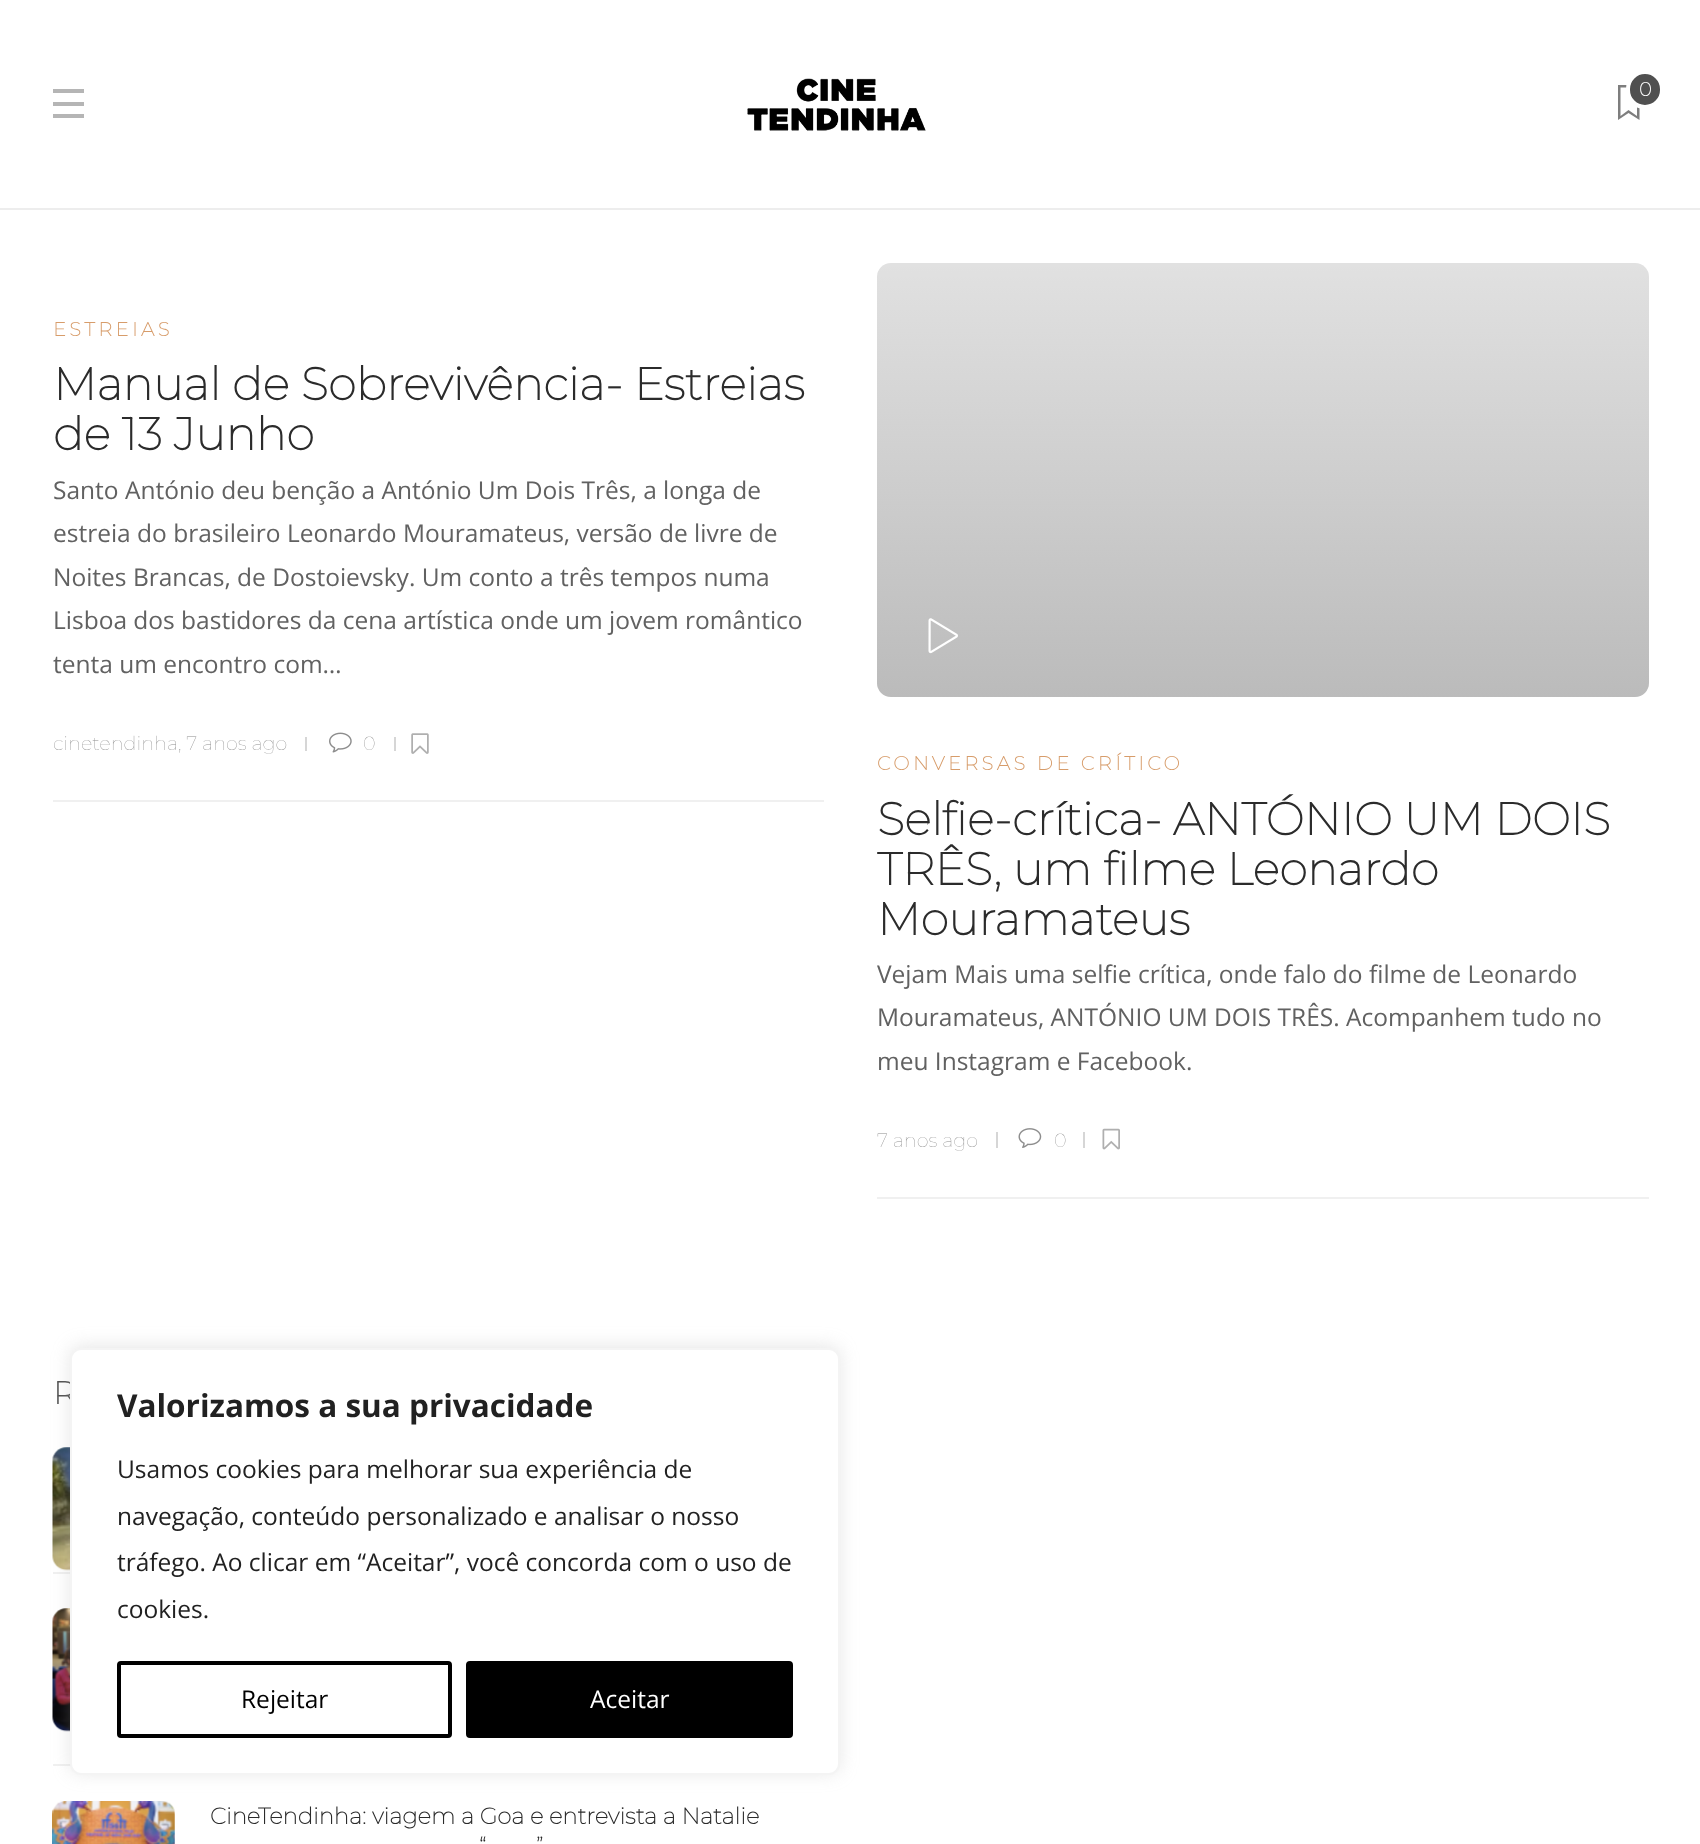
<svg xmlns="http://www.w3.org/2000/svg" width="1700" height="1844">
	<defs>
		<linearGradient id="g1" gradientUnits="userSpaceOnUse" x1="1263" y1="262" x2="1263" y2="697"><stop offset="0" stop-color="#232323" stop-opacity="0" /><stop offset="1" stop-color="#232323" stop-opacity="0.2" /></linearGradient>
	</defs>
	<rect width="100%" height="100%" fill="#FFFFFF" />
	<rect x="0" y="208" width="1700" height="2" fill="#EDEDED" />
	<rect x="53" y="89" width="31" height="4" fill="#B5B5B5" />
	<rect x="53" y="102" width="31" height="4" fill="#B5B5B5" />
	<rect x="53" y="114" width="31" height="4" fill="#B5B5B5" />
	<image x="747" y="78" width="179" height="53" href="assets/img1.png" />
	<path d="M1618 85V120L1628.5 113L1639.5 120V85ZM1637 116L1628.5 110L1620.5 116V87.5H1637Z" fill="#7E7E7E" />
	<rect x="1628" y="72" width="34" height="35" rx="17" fill="#505050" stroke="#FFFFFF" stroke-width="4" />
	<text x="1639" y="96" font-family="Montserrat" font-size="19.25" font-weight="700" fill="#FFFFFF">0</text>
	<rect x="53" y="800" width="771" height="2" fill="#F0F0F0" />
	<text x="53" y="336" font-family="Montserrat" font-size="19.25" font-weight="700" letter-spacing="3.5" fill="#D79C6A">ESTREIAS</text>
	<g font-family="Montserrat" font-size="45.5" font-weight="700" fill="#2B2B2B">
		<text x="53" y="400">Manual de Sobrevivência- Estreias</text>
		<text x="53" y="450">de 13 Junho</text>
	</g>
	<g font-family="Open Sans" font-size="24.5" fill="#616161">
		<text x="53" y="499">Santo António deu benção a António Um Dois Três, a longa de</text>
		<text x="53" y="542">estreia do brasileiro Leonardo Mouramateus, versão de livre de</text>
		<text x="53" y="586">Noites Brancas, de Dostoievsky. Um conto a três tempos numa</text>
		<text x="53" y="629">Lisboa dos bastidores da cena artística onde um jovem romântico</text>
		<text x="53" y="673">tenta um encontro com…</text>
	</g>
	<text x="53" y="750" font-family="Montserrat" font-size="19.25" font-weight="100" fill="#8D8D8D">cinetendinha, 7 anos ago</text>
	<rect x="305" y="737" width="2" height="14" fill="#D6D6D6" />
	<image x="329" y="732" width="23" height="21" href="assets/img2.png" />
	<text x="363" y="750" font-family="Montserrat" font-size="19.25" font-weight="100" fill="#8D8D8D">0</text>
	<rect x="394" y="737" width="2" height="14" fill="#D6D6D6" />
	<image x="411" y="733" width="18" height="21" href="assets/img3.png" />
	<rect x="877" y="1197" width="772" height="2" fill="#F0F0F0" />
	<rect x="877" y="263" width="772" height="434" rx="14" fill="#E1E1E1" />
	<rect x="877" y="263" width="772" height="434" rx="14" fill="url(#g1)" />
	<image x="928" y="618" width="30" height="36" href="assets/img4.png" />
	<text x="877" y="770" font-family="Montserrat" font-size="19.25" font-weight="700" letter-spacing="3.5" fill="#D79C6A">CONVERSAS DE CRÍTICO</text>
	<g font-family="Montserrat" font-size="45.5" font-weight="700" fill="#2B2B2B">
		<text x="877" y="835">Selfie-crítica- ANTÓNIO UM DOIS</text>
		<text x="877" y="885">TRÊS, um filme Leonardo</text>
		<text x="877" y="935">Mouramateus</text>
	</g>
	<g font-family="Open Sans" font-size="24.5" fill="#616161">
		<text x="877" y="983">Vejam Mais uma selfie crítica, onde falo do filme de Leonardo</text>
		<text x="877" y="1026">Mouramateus, ANTÓNIO UM DOIS TRÊS. Acompanhem tudo no</text>
		<text x="877" y="1070">meu Instagram e Facebook.</text>
	</g>
	<text x="877" y="1147" font-family="Montserrat" font-size="19.25" font-weight="100" fill="#8D8D8D">7 anos ago</text>
	<rect x="996" y="1132" width="2" height="16" fill="#D6D6D6" />
	<image x="1018" y="1128" width="24" height="20" href="assets/img5.png" />
	<text x="1054" y="1147" font-family="Montserrat" font-size="19.25" font-weight="100" fill="#8D8D8D">0</text>
	<rect x="1083" y="1132" width="2" height="16" fill="#D6D6D6" />
	<image x="1102" y="1128" width="18" height="22" href="assets/img6.png" />
	<text x="53" y="1404" font-family="Montserrat" font-size="31.5" font-weight="700" fill="#505050">R</text>
	<rect x="53" y="1572" width="17" height="2" fill="#F0F0F0" />
	<image x="52" y="1447" width="18" height="124" href="assets/img7.png" />
	<rect x="53" y="1764" width="18" height="2" fill="#F0F0F0" />
	<image x="52" y="1608" width="18" height="124" href="assets/img8.png" />
	<image x="52" y="1801" width="123" height="43" href="assets/img9.png" />
	<g font-family="Montserrat" font-size="22.75" font-weight="700" fill="#2B2B2B">
		<text x="210" y="1824">CineTendinha: viagem a Goa e entrevista a Natalie</text>
		<text x="479" y="1854">“</text>
		<text x="536" y="1854">”</text>
	</g>
	<rect x="70" y="1346" width="770" height="427" rx="11" fill="#ACABAB" fill-opacity="0.3" filter="blur(9px)" />
	<rect x="71" y="1349" width="768" height="425" rx="10" fill="#FFFFFF" stroke="#F4F4F4" stroke-width="2" />
	<text x="117" y="1417" font-family="Open Sans" font-size="31.5" font-weight="700" fill="#212121">Valorizamos a sua privacidade</text>
	<g font-family="Open Sans" font-size="24.5" fill="#212121">
		<text x="117" y="1478">Usamos cookies para melhorar sua experiência de</text>
		<text x="117" y="1525">navegação, conteúdo personalizado e analisar o nosso</text>
		<text x="117" y="1571">tráfego. Ao clicar em “Aceitar”, você concorda com o uso de</text>
		<text x="117" y="1618">cookies.</text>
	</g>
	<rect x="119" y="1663" width="331" height="73" rx="2" fill="none" stroke="#000000" stroke-width="4" />
	<text x="241" y="1708" font-family="Open Sans" font-size="24.5" fill="#000000">Rejeitar</text>
	<rect x="468" y="1663" width="323" height="73" rx="2" fill="#000000" stroke="#000000" stroke-width="4" />
	<text x="590" y="1708" font-family="Open Sans" font-size="24.5" fill="#FFFFFF">Aceitar</text>
</svg>
